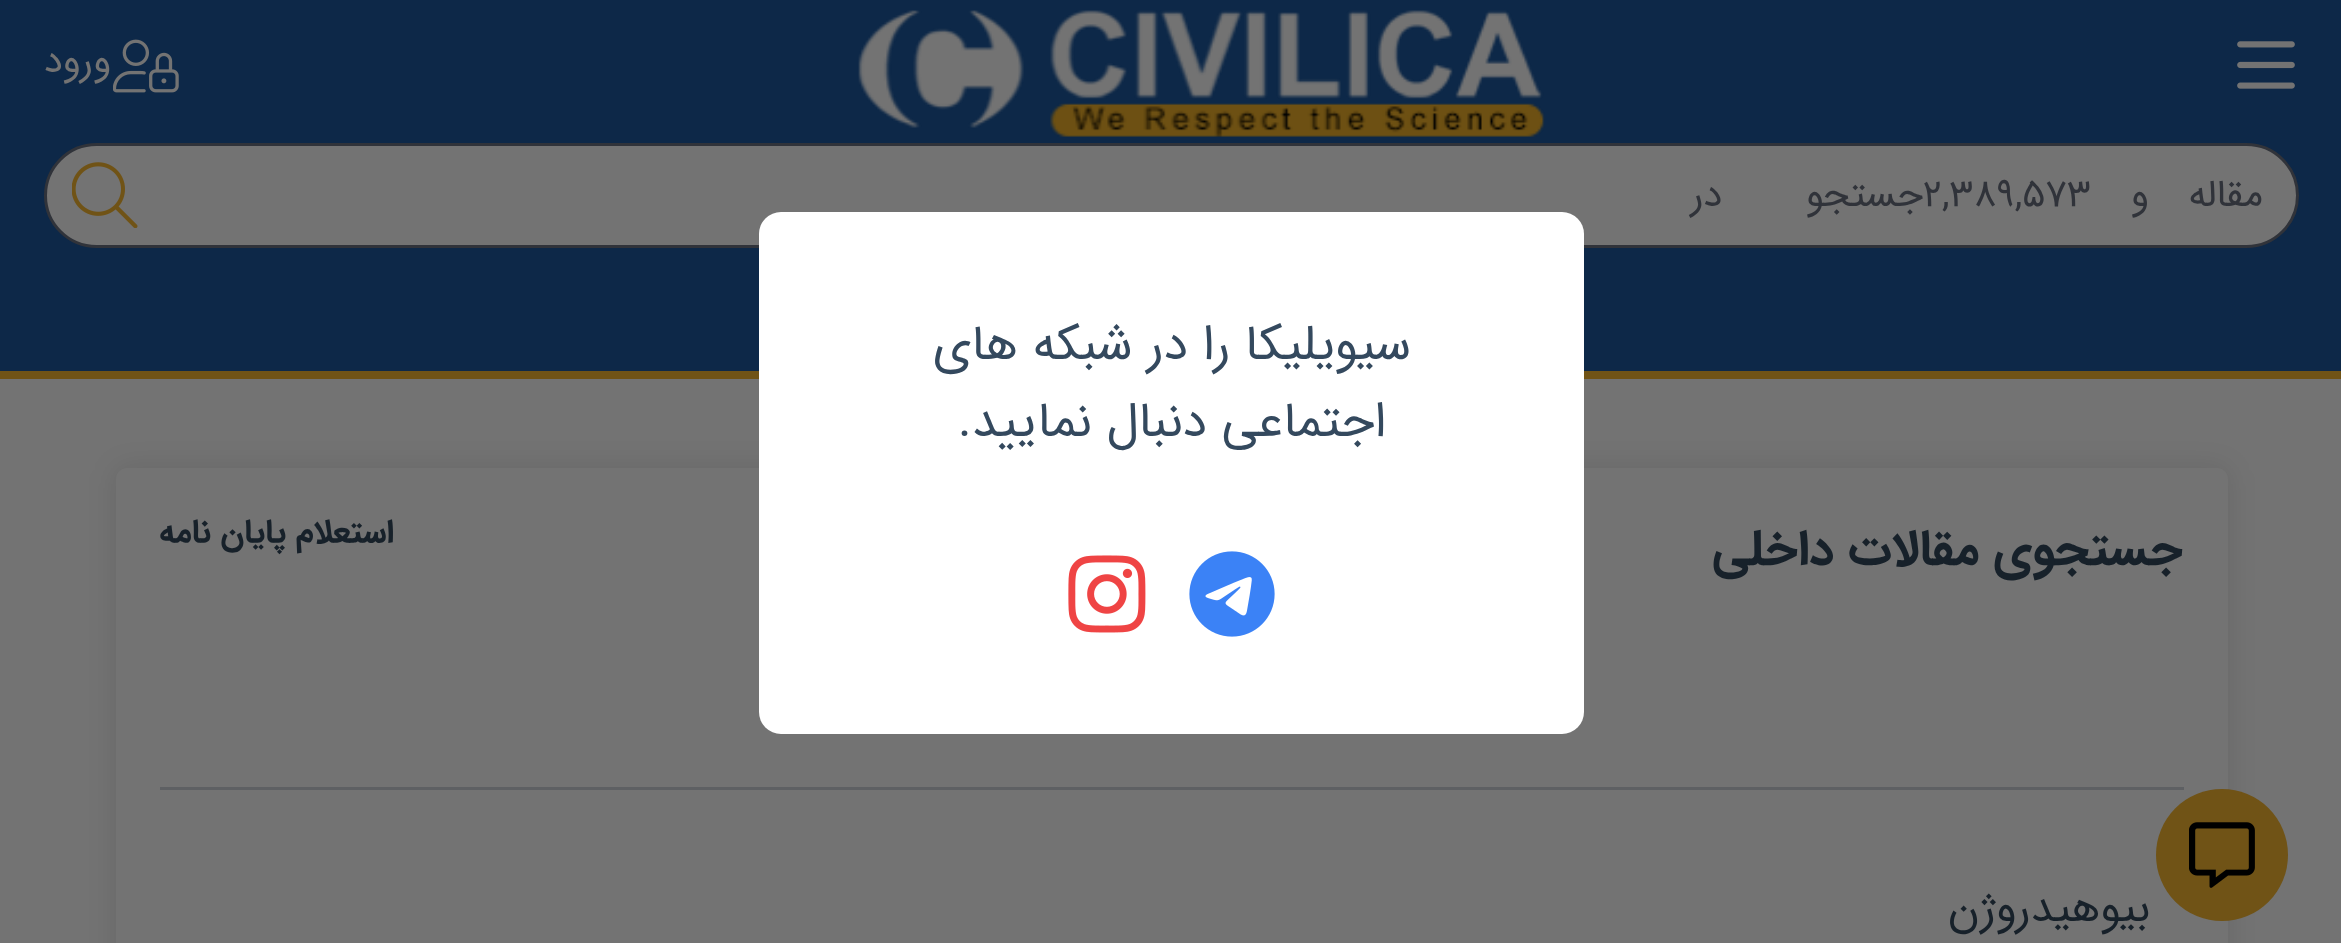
<svg xmlns="http://www.w3.org/2000/svg" width="2341" height="943">
	<rect width="100%" height="100%" fill="#737373" />
	<rect x="0" y="0" width="2341" height="371" fill="#0D2848" />
	<rect x="0" y="371" width="2341" height="8" fill="#705316" />
	<image x="2237" y="41" width="58" height="48" href="assets/img1.png" />
	<image x="858" y="10" width="687" height="127" href="assets/img2.png" />
	<image x="113" y="39" width="66" height="54" href="assets/img3.png" />
	<text x="111" y="72" font-family="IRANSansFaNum" font-size="38.5" direction="rtl" fill="#737373">ورود</text>
	<rect x="45.5" y="144.5" width="2252" height="102" rx="51" fill="#737373" stroke="#30333A" stroke-width="3" />
	<text x="2263" y="206" word-spacing="28" font-family="IRANSansFaNum" font-size="38.5" direction="rtl" fill="#30333A">مقاله و</text>
	<text x="1923" y="206" font-family="IRANSansFaNum" font-size="38.5" fill="#30333A">2,389,573</text>
	<text x="1923" y="206" word-spacing="72" font-family="IRANSansFaNum" font-size="38.5" direction="rtl" fill="#30333A">جستجو در</text>
	<image x="72" y="162" width="66" height="66" href="assets/img4.png" />
	<rect x="116" y="468" width="2112" height="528" rx="11" fill="#000000" fill-opacity="0.1" filter="blur(14px)" />
	<rect x="116" y="468" width="2112" height="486" rx="11" fill="#737373" />
	<rect x="759" y="212" width="825" height="522" rx="22" fill="#FFFFFF" />
	<g font-family="IRANSansFaNum" font-size="49.5" direction="rtl" fill="#34495E">
		<text x="1411" y="359">سیویلیکا را در شبکه های</text>
		<text x="1386" y="436">اجتماعی دنبال نمایید.</text>
	</g>
	<image x="1189" y="551" width="86" height="86" href="assets/img5.png" />
	<image x="1068" y="555" width="78" height="78" href="assets/img6.png" />
	<rect x="160" y="787" width="2024" height="3" fill="#5E6063" />
	<circle cx="2222" cy="855" r="66" fill="#705316" />
	<image x="2189" y="822" width="66" height="66" href="assets/img7.png" />
	<text x="2183" y="564" font-family="IRANSansFaNum" font-size="49.5" font-weight="700" direction="rtl" fill="#17212A">جستجوی مقالات داخلی</text>
	<text x="2150" y="921" font-family="IRANSansFaNum" font-size="44" direction="rtl" fill="#17212A">بیوهیدروژن</text>
	<text x="394" y="542" font-family="IRANSansFaNum" font-size="33" font-weight="700" direction="rtl" fill="#17212A">استعلام پایان نامه</text>
</svg>
